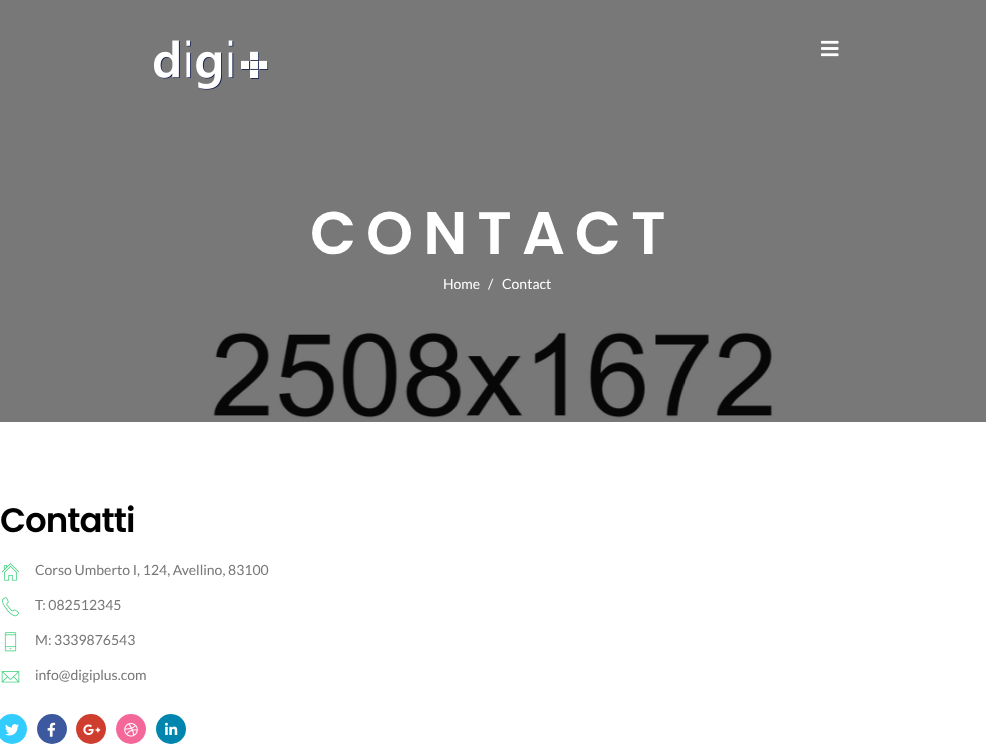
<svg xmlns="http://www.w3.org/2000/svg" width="986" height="750">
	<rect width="100%" height="100%" fill="#FFFFFF" />
	<image x="0" y="0" width="986" height="422" href="assets/img3.png" />
	<image x="154" y="40" width="115" height="50" href="assets/img1.png" />
	<image x="821" y="40" width="18" height="17" href="assets/img2.png" />
	<text x="310" y="254" font-family="Poppins" font-size="60" font-weight="600" letter-spacing="10" fill="#FFFFFF">CONTACT</text>
	<g font-family="Lato" font-size="14" fill="#FFFFFF">
		<text x="443" y="289">Home</text>
		<text x="488" y="289">/</text>
		<text x="502" y="289">Contact</text>
	</g>
	<text x="0" y="532" font-family="Poppins" font-size="34" font-weight="600" letter-spacing="-1" fill="#000000">Contatti</text>
	<image x="1" y="563" width="19" height="18" href="assets/img4.png" />
	<text x="35" y="575" font-family="Lato" font-size="14" fill="#777777">Corso Umberto I, 124, Avellino, 83100</text>
	<image x="2" y="597" width="17" height="20" href="assets/img5.png" />
	<text x="35" y="610" font-family="Lato" font-size="14" fill="#777777">T: 082512345</text>
	<image x="4" y="632" width="13" height="20" href="assets/img6.png" />
	<text x="35" y="645" font-family="Lato" font-size="14" fill="#777777">M: 3339876543</text>
	<image x="1" y="671" width="19" height="12" href="assets/img7.png" />
	<text x="35" y="680" font-family="Lato" font-size="14" fill="#777777">info@digiplus.com</text>
	<circle cx="12" cy="729" r="15" fill="#32CCFE" />
	<image x="5" y="724" width="14" height="12" href="assets/img8.png" />
	<circle cx="52" cy="729" r="15" fill="#3C599F" />
	<image x="47" y="722" width="9" height="15" href="assets/img9.png" />
	<circle cx="91" cy="729" r="15" fill="#CF3D2E" />
	<image x="83" y="724" width="18" height="11" href="assets/img10.png" />
	<circle cx="131" cy="729" r="15" fill="#F46899" />
	<image x="124" y="723" width="14" height="14" href="assets/img11.png" />
	<circle cx="171" cy="729" r="15" fill="#0085AE" />
	<image x="165" y="722" width="13" height="13" href="assets/img12.png" />
</svg>
